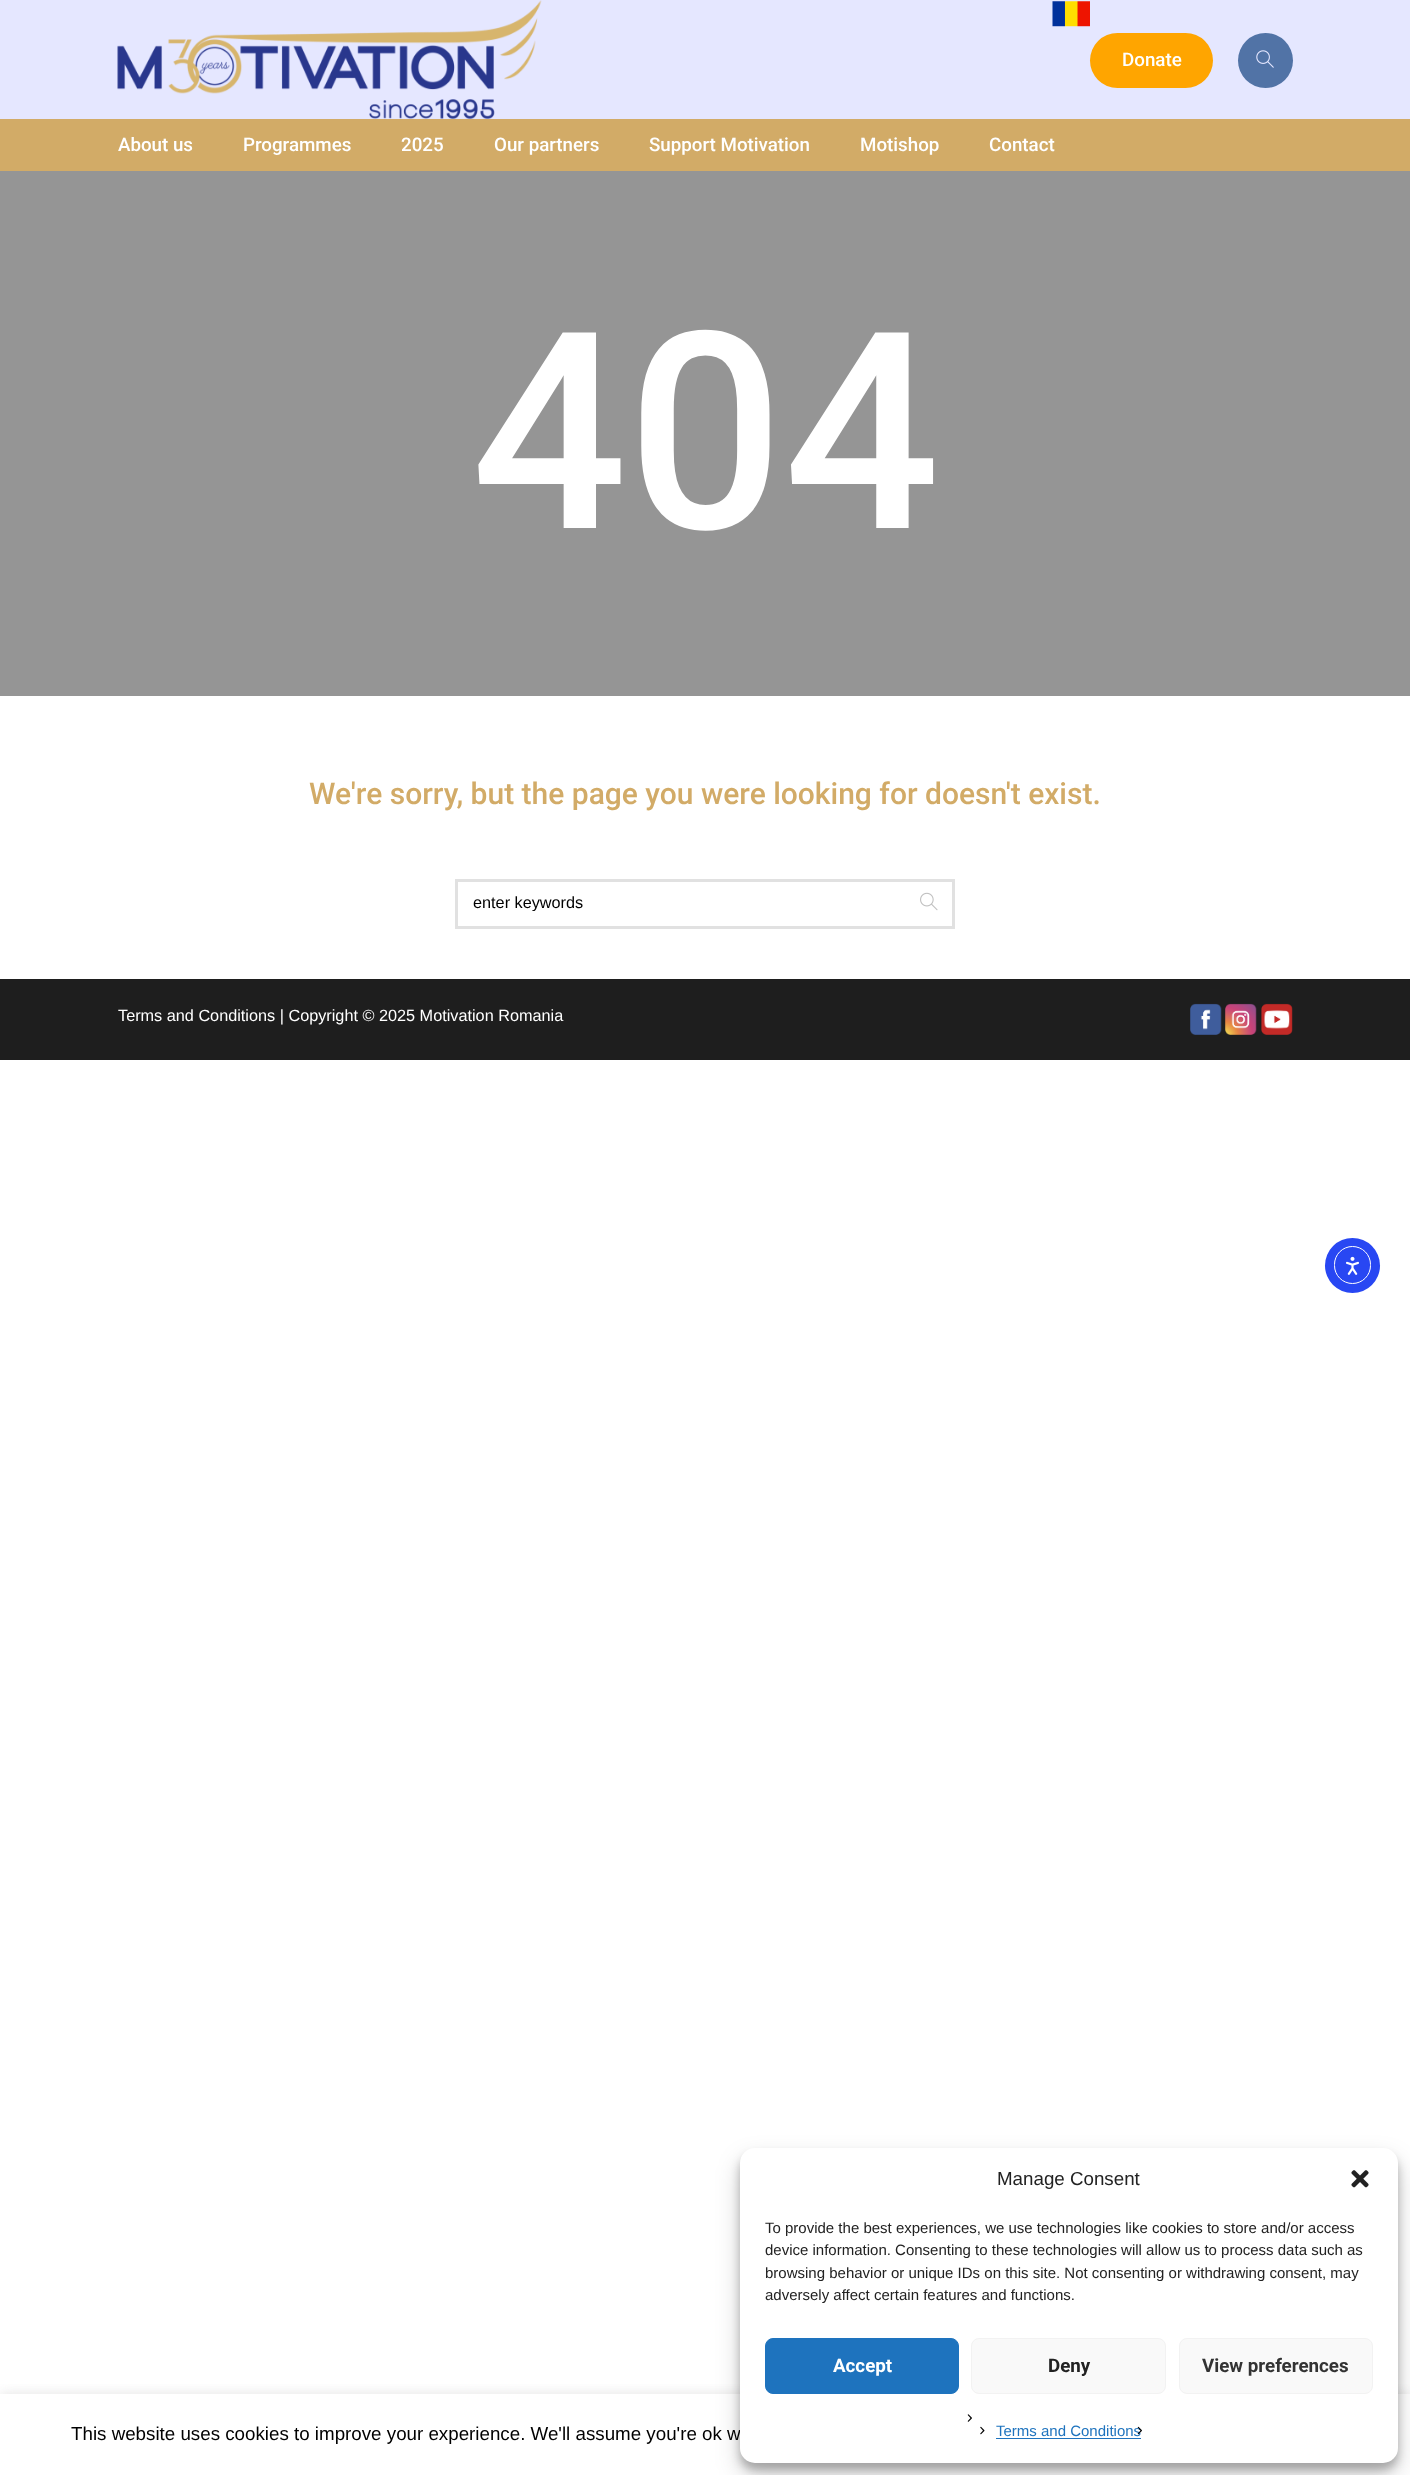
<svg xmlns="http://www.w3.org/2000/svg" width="1410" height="2475">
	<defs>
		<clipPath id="clip1"><rect x="473" y="893" width="407" height="18" /></clipPath>
		<clipPath id="clip2"><rect x="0" y="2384" width="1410" height="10" /></clipPath>
	</defs>
	<rect width="100%" height="100%" fill="#FFFFFF" />
	<rect x="0" y="0" width="1410" height="119" fill="#E5E7FF" />
	<image x="117" y="0" width="425" height="119" href="assets/img1.png" />
	<image x="1052" y="1" width="38" height="26" href="assets/img2.png" />
	<rect x="1090" y="33" width="123" height="55" rx="27.5" fill="#FFA500" />
	<text x="1122" y="66" font-family="Roboto" font-size="18.75" font-weight="500" fill="#FFFFFF">Donate</text>
	<circle cx="1265.5" cy="60.5" r="27.5" fill="#5173A6" />
	<image x="1256" y="50" width="18" height="18" href="assets/img3.png" />
	<rect x="0" y="119" width="1410" height="52" fill="#D2AB67" />
	<g font-family="Roboto" font-size="18.75" font-weight="500" fill="#FFFFFF">
		<text x="118" y="151">About us</text>
		<text x="243" y="151">Programmes</text>
		<text x="401" y="151">2025</text>
		<text x="494" y="151">Our partners</text>
		<text x="649" y="151">Support Motivation</text>
		<text x="860" y="151">Motishop</text>
		<text x="989" y="151">Contact</text>
	</g>
	<rect x="0" y="171" width="1410" height="525" fill="#959595" />
	<text x="471" y="528" font-family="Roboto" font-size="275" font-weight="500" fill="#FFFFFF">404</text>
	<text x="309" y="804" font-family="Roboto" font-size="30" font-weight="500" fill="#D2AB67">We're sorry, but the page you were looking for doesn't exist.</text>
	<rect x="456.5" y="880.5" width="497" height="47" fill="none" stroke="#E1E1E1" stroke-width="3" />
	<g clip-path="url(#clip1)">
		<text x="473" y="908" font-family="Liberation Sans" font-size="16.25" fill="#000000">enter keywords</text>
	</g>
	<image x="920" y="892" width="18" height="19" href="assets/img4.png" />
	<rect x="0" y="979" width="1410" height="81" fill="#1E1E1E" />
	<text x="118" y="1021" font-family="Liberation Sans" font-size="16.25" fill="#FFFFFF">Terms and Conditions | Copyright © 2025 Motivation Romania</text>
	<image x="1190" y="1003" width="32" height="32" href="assets/img5.png" />
	<image x="1225" y="1003" width="32" height="32" href="assets/img6.png" />
	<image x="1261" y="1003" width="32" height="32" href="assets/img7.png" />
	<circle cx="1352.5" cy="1265.5" r="27.5" fill="#2847F3" />
	<rect x="1334.5" y="1246.5" width="36" height="37" rx="18" fill="none" stroke="#FFFFFF" />
	<image x="1346" y="1256" width="13" height="19" href="assets/img8.png" />
	<g clip-path="url(#clip2)">
		<rect x="0" y="2393" width="1410" height="81" fill="#ACABAB" fill-opacity="0.3" filter="blur(6px)" />
	</g>
	<text x="71" y="2440" font-family="Liberation Sans" font-size="18.75" fill="#000000">This website uses cookies to improve your experience. We'll assume you're ok w</text>
	<rect x="740" y="2155" width="658" height="315" rx="15" fill="#000000" fill-opacity="0.23" filter="blur(4px)" />
	<rect x="740" y="2160" width="658" height="315" rx="15" fill="#000000" fill-opacity="0.19" filter="blur(12.5px)" />
	<rect x="740" y="2148" width="658" height="315" rx="15" fill="#FFFFFF" />
	<text x="997" y="2185" font-family="Liberation Sans" font-size="18.75" fill="#222222">Manage Consent</text>
	<image x="1351" y="2170" width="18" height="18" href="assets/img9.png" />
	<g font-family="Liberation Sans" font-size="15" fill="#222222">
		<text x="765" y="2233">To provide the best experiences, we use technologies like cookies to store and/or access</text>
		<text x="765" y="2255">device information. Consenting to these technologies will allow us to process data such as</text>
		<text x="765" y="2278">browsing behavior or unique IDs on this site. Not consenting or withdrawing consent, may</text>
		<text x="765" y="2300">adversely affect certain features and functions.</text>
	</g>
	<rect x="765.5" y="2338.5" width="193" height="55" rx="7.5" fill="#1E73BE" stroke="#1E73BE" />
	<text x="833" y="2372" font-family="Roboto" font-size="18.75" font-weight="700" fill="#FFFFFF">Accept</text>
	<rect x="971.5" y="2338.5" width="194" height="55" rx="7.5" fill="#F9F9F9" stroke="#F2F2F2" />
	<text x="1048" y="2372" font-family="Roboto" font-size="18.75" font-weight="700" fill="#222222">Deny</text>
	<rect x="1179.5" y="2338.5" width="193" height="55" rx="7.5" fill="#F9F9F9" stroke="#F2F2F2" />
	<text x="1202" y="2372" font-family="Roboto" font-size="18.75" font-weight="700" fill="#333333">View preferences</text>
	<image x="967" y="2414" width="5" height="8" href="assets/img10.png" />
	<image x="980" y="2426" width="5" height="9" href="assets/img11.png" />
	<text x="996" y="2436" font-family="Liberation Sans" font-size="15" fill="#1E73BE">Terms and Conditions</text>
	<rect x="996" y="2438" width="145" height="1" fill="#1E73BE" />
	<image x="1137" y="2426" width="5" height="9" href="assets/img12.png" />
</svg>
